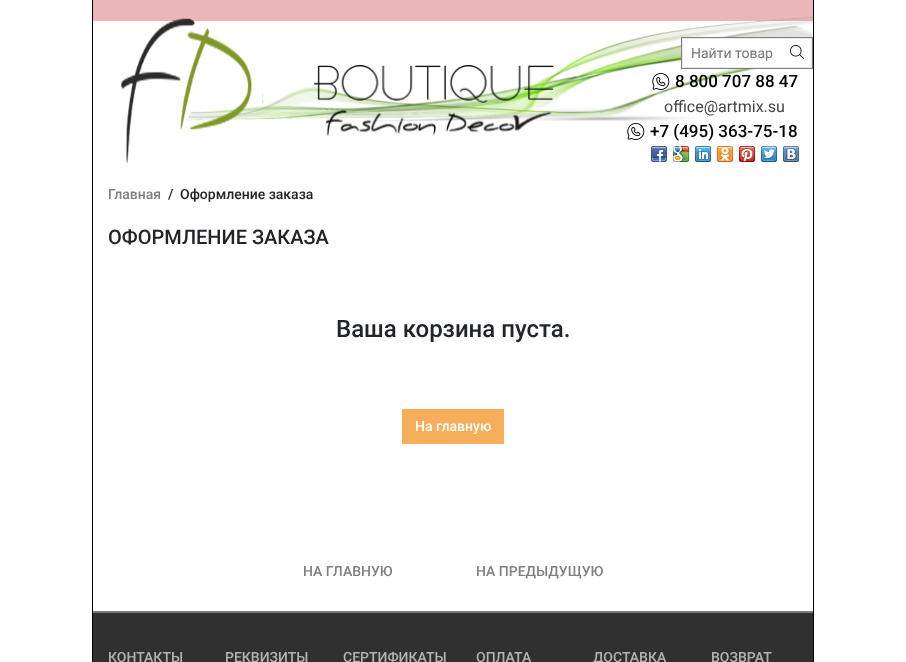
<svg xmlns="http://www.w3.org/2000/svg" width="906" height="662">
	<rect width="100%" height="100%" fill="#FFFFFF" />
	<rect x="813" y="0" width="1" height="662" fill="#000000" />
	<rect x="92" y="0" width="1" height="662" fill="#000000" />
	<rect x="93" y="0" width="720" height="21" fill="#ECB5B8" />
	<image x="187" y="16" width="626" height="106" href="assets/img1.png" />
	<image x="120" y="18" width="144" height="145" href="assets/img2.png" />
	<image x="314" y="65" width="241" height="72" href="assets/img3.png" />
	<rect x="681.5" y="37.5" width="131" height="31" fill="none" stroke="#808080" />
	<rect x="682.5" y="38.5" width="129" height="29" fill="#FFFFFF" stroke="#E8E8E8" />
	<text x="691" y="58" font-family="Roboto" font-size="14" fill="#757575">Найти товар</text>
	<image x="790" y="45" width="14" height="14" href="assets/img4.png" />
	<image x="652" y="73" width="18" height="17" href="assets/img5.png" />
	<text x="675" y="87" font-family="Roboto" font-size="17" font-weight="500" fill="#000000">8 800 707 88 47</text>
	<text x="664" y="112" font-family="Roboto" font-size="16" fill="#444444">office@artmix.su</text>
	<image x="627" y="123" width="18" height="17" href="assets/img6.png" />
	<text x="650" y="137" font-family="Roboto" font-size="17" font-weight="500" fill="#000000">+7 (495) 363-75-18</text>
	<image x="651" y="146" width="16" height="16" href="assets/img7.png" />
	<image x="673" y="146" width="16" height="16" href="assets/img8.png" />
	<image x="695" y="146" width="16" height="16" href="assets/img9.png" />
	<image x="717" y="146" width="16" height="16" href="assets/img10.png" />
	<image x="739" y="146" width="16" height="16" href="assets/img11.png" />
	<image x="761" y="146" width="16" height="16" href="assets/img12.png" />
	<image x="783" y="146" width="16" height="16" href="assets/img13.png" />
	<text x="108" y="199" font-family="Roboto" font-size="14" font-weight="500" fill="#808080">Главная</text>
	<g font-family="Roboto" font-size="14" font-weight="500" fill="#212529">
		<text x="168" y="199">/</text>
		<text x="180" y="199">Оформление заказа</text>
	</g>
	<text x="108" y="244" font-family="Roboto" font-size="20" font-weight="500" fill="#212529">ОФОРМЛЕНИЕ ЗАКАЗА</text>
	<text x="336" y="337" font-family="Roboto" font-size="24" font-weight="500" fill="#212529">Ваша корзина пуста.</text>
	<rect x="402" y="409" width="102" height="35" fill="#F6AE5A" />
	<text x="415" y="431" font-family="Roboto" font-size="14" font-weight="500" fill="#FFFFFF">На главную</text>
	<g font-family="Roboto" font-size="14" font-weight="500" fill="#808080">
		<text x="303" y="576">НА ГЛАВНУЮ</text>
		<text x="476" y="576">НА ПРЕДЫДУЩУЮ</text>
	</g>
	<rect x="93" y="613" width="720" height="49" fill="#303030" />
	<rect x="93" y="611" width="720" height="2" fill="#7A7A7A" />
	<g font-family="Roboto" font-size="14" font-weight="500" fill="#B3B3B3">
		<text x="108" y="662">КОНТАКТЫ</text>
		<text x="225" y="662">РЕКВИЗИТЫ</text>
		<text x="343" y="662">СЕРТИФИКАТЫ</text>
		<text x="476" y="662">ОПЛАТА</text>
		<text x="593" y="662">ДОСТАВКА</text>
		<text x="711" y="662">ВОЗВРАТ</text>
	</g>
</svg>
